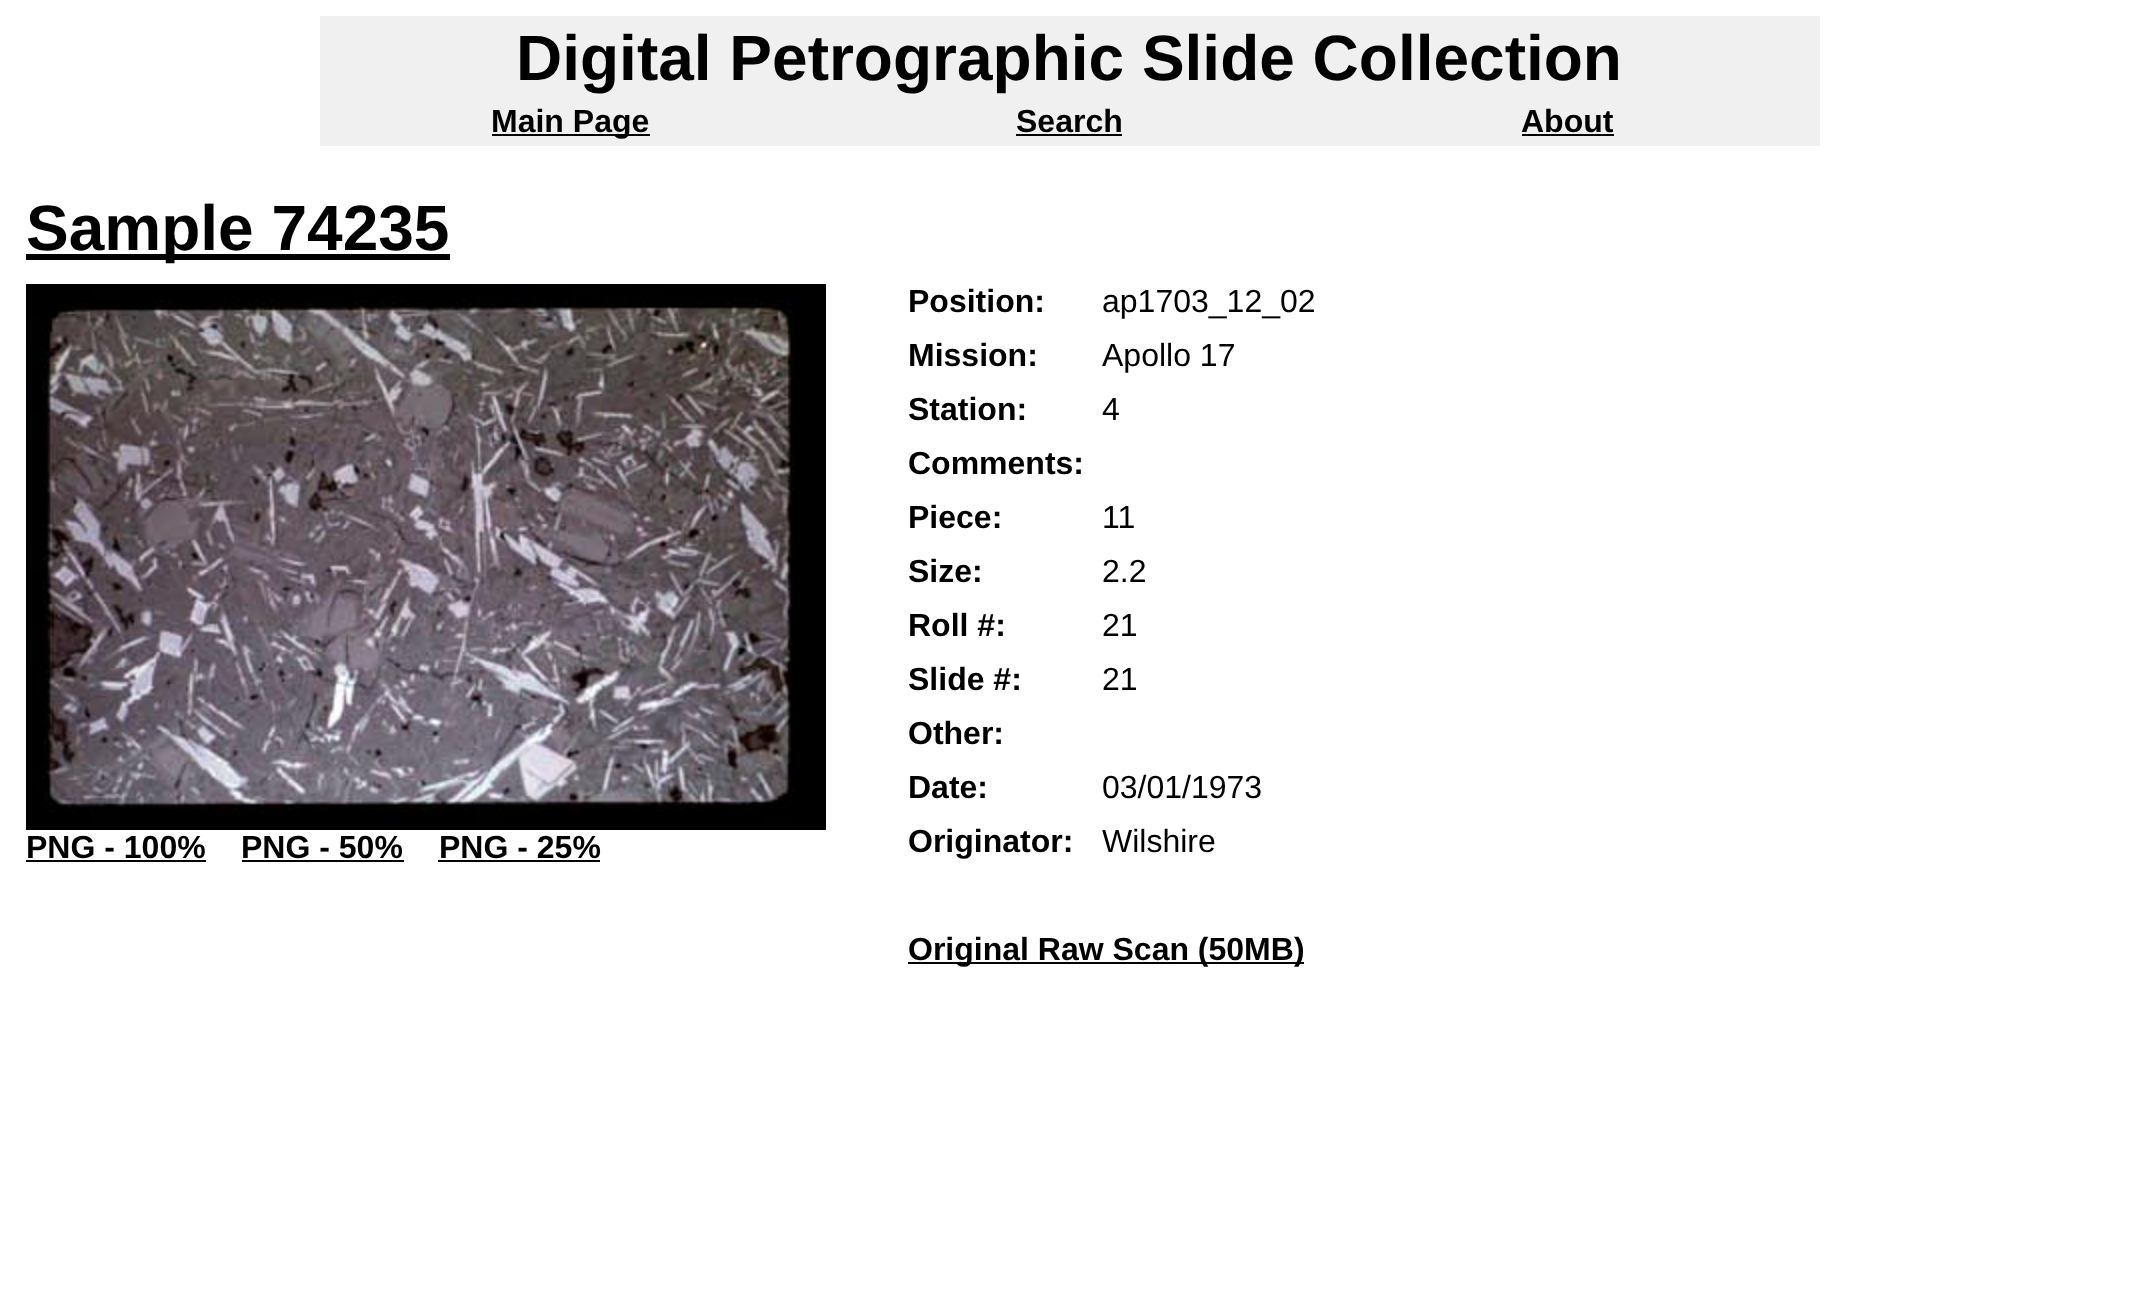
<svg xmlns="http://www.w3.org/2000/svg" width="2138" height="1314">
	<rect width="100%" height="100%" fill="#FFFFFF" />
	<rect x="320" y="16" width="1500" height="130" fill="#F0F0F0" />
	<text x="516" y="80" font-family="Liberation Sans" font-size="64" font-weight="700" fill="#000000">Digital Petrographic Slide Collection</text>
	<rect x="492" y="134" width="158" height="2" fill="#000000" />
	<g font-family="Liberation Sans" font-size="32" font-weight="700" fill="#000000">
		<text x="491" y="132">Main Page</text>
		<text x="1016" y="132">Search</text>
	</g>
	<rect x="1016" y="134" width="106" height="2" fill="#000000" />
	<text x="1521" y="132" font-family="Liberation Sans" font-size="32" font-weight="700" fill="#000000">About</text>
	<rect x="1522" y="134" width="92" height="2" fill="#000000" />
	<rect x="26" y="254" width="424" height="6" fill="#000000" />
	<text x="26" y="250" font-family="Liberation Sans" font-size="64" font-weight="700" fill="#000000">Sample 74235</text>
	<text x="908" y="312" font-family="Liberation Sans" font-size="32" font-weight="700" fill="#000000">Position:</text>
	<text x="1102" y="312" font-family="Liberation Sans" font-size="32" fill="#000000">ap1703_12_02</text>
	<image x="26" y="284" width="800" height="546" href="assets/img1.png" />
	<text x="26" y="858" font-family="Liberation Sans" font-size="32" font-weight="700" fill="#000000">PNG - 100%</text>
	<rect x="26" y="860" width="180" height="2" fill="#000000" />
	<text x="241" y="858" font-family="Liberation Sans" font-size="32" font-weight="700" fill="#000000">PNG - 50%</text>
	<rect x="242" y="860" width="162" height="2" fill="#000000" />
	<text x="439" y="858" font-family="Liberation Sans" font-size="32" font-weight="700" fill="#000000">PNG - 25%</text>
	<rect x="438" y="860" width="162" height="2" fill="#000000" />
	<text x="908" y="366" font-family="Liberation Sans" font-size="32" font-weight="700" fill="#000000">Mission:</text>
	<text x="1102" y="366" font-family="Liberation Sans" font-size="32" fill="#000000">Apollo 17</text>
	<text x="908" y="420" font-family="Liberation Sans" font-size="32" font-weight="700" fill="#000000">Station:</text>
	<text x="1102" y="420" font-family="Liberation Sans" font-size="32" fill="#000000">4</text>
	<g font-family="Liberation Sans" font-size="32" font-weight="700" fill="#000000">
		<text x="908" y="474">Comments:</text>
		<text x="908" y="528">Piece:</text>
	</g>
	<text x="1102" y="528" font-family="Liberation Sans" font-size="32" fill="#000000">11</text>
	<text x="908" y="582" font-family="Liberation Sans" font-size="32" font-weight="700" fill="#000000">Size:</text>
	<text x="1102" y="582" font-family="Liberation Sans" font-size="32" fill="#000000">2.2</text>
	<text x="908" y="636" font-family="Liberation Sans" font-size="32" font-weight="700" fill="#000000">Roll #:</text>
	<text x="1102" y="636" font-family="Liberation Sans" font-size="32" fill="#000000">21</text>
	<text x="908" y="690" font-family="Liberation Sans" font-size="32" font-weight="700" fill="#000000">Slide #:</text>
	<text x="1102" y="690" font-family="Liberation Sans" font-size="32" fill="#000000">21</text>
	<g font-family="Liberation Sans" font-size="32" font-weight="700" fill="#000000">
		<text x="908" y="744">Other:</text>
		<text x="908" y="798">Date:</text>
	</g>
	<text x="1102" y="798" font-family="Liberation Sans" font-size="32" fill="#000000">03/01/1973</text>
	<text x="908" y="852" font-family="Liberation Sans" font-size="32" font-weight="700" fill="#000000">Originator:</text>
	<text x="1102" y="852" font-family="Liberation Sans" font-size="32" fill="#000000">Wilshire</text>
	<rect x="908" y="962" width="396" height="2" fill="#000000" />
	<text x="908" y="960" font-family="Liberation Sans" font-size="32" font-weight="700" fill="#000000">Original Raw Scan (50MB)</text>
</svg>
